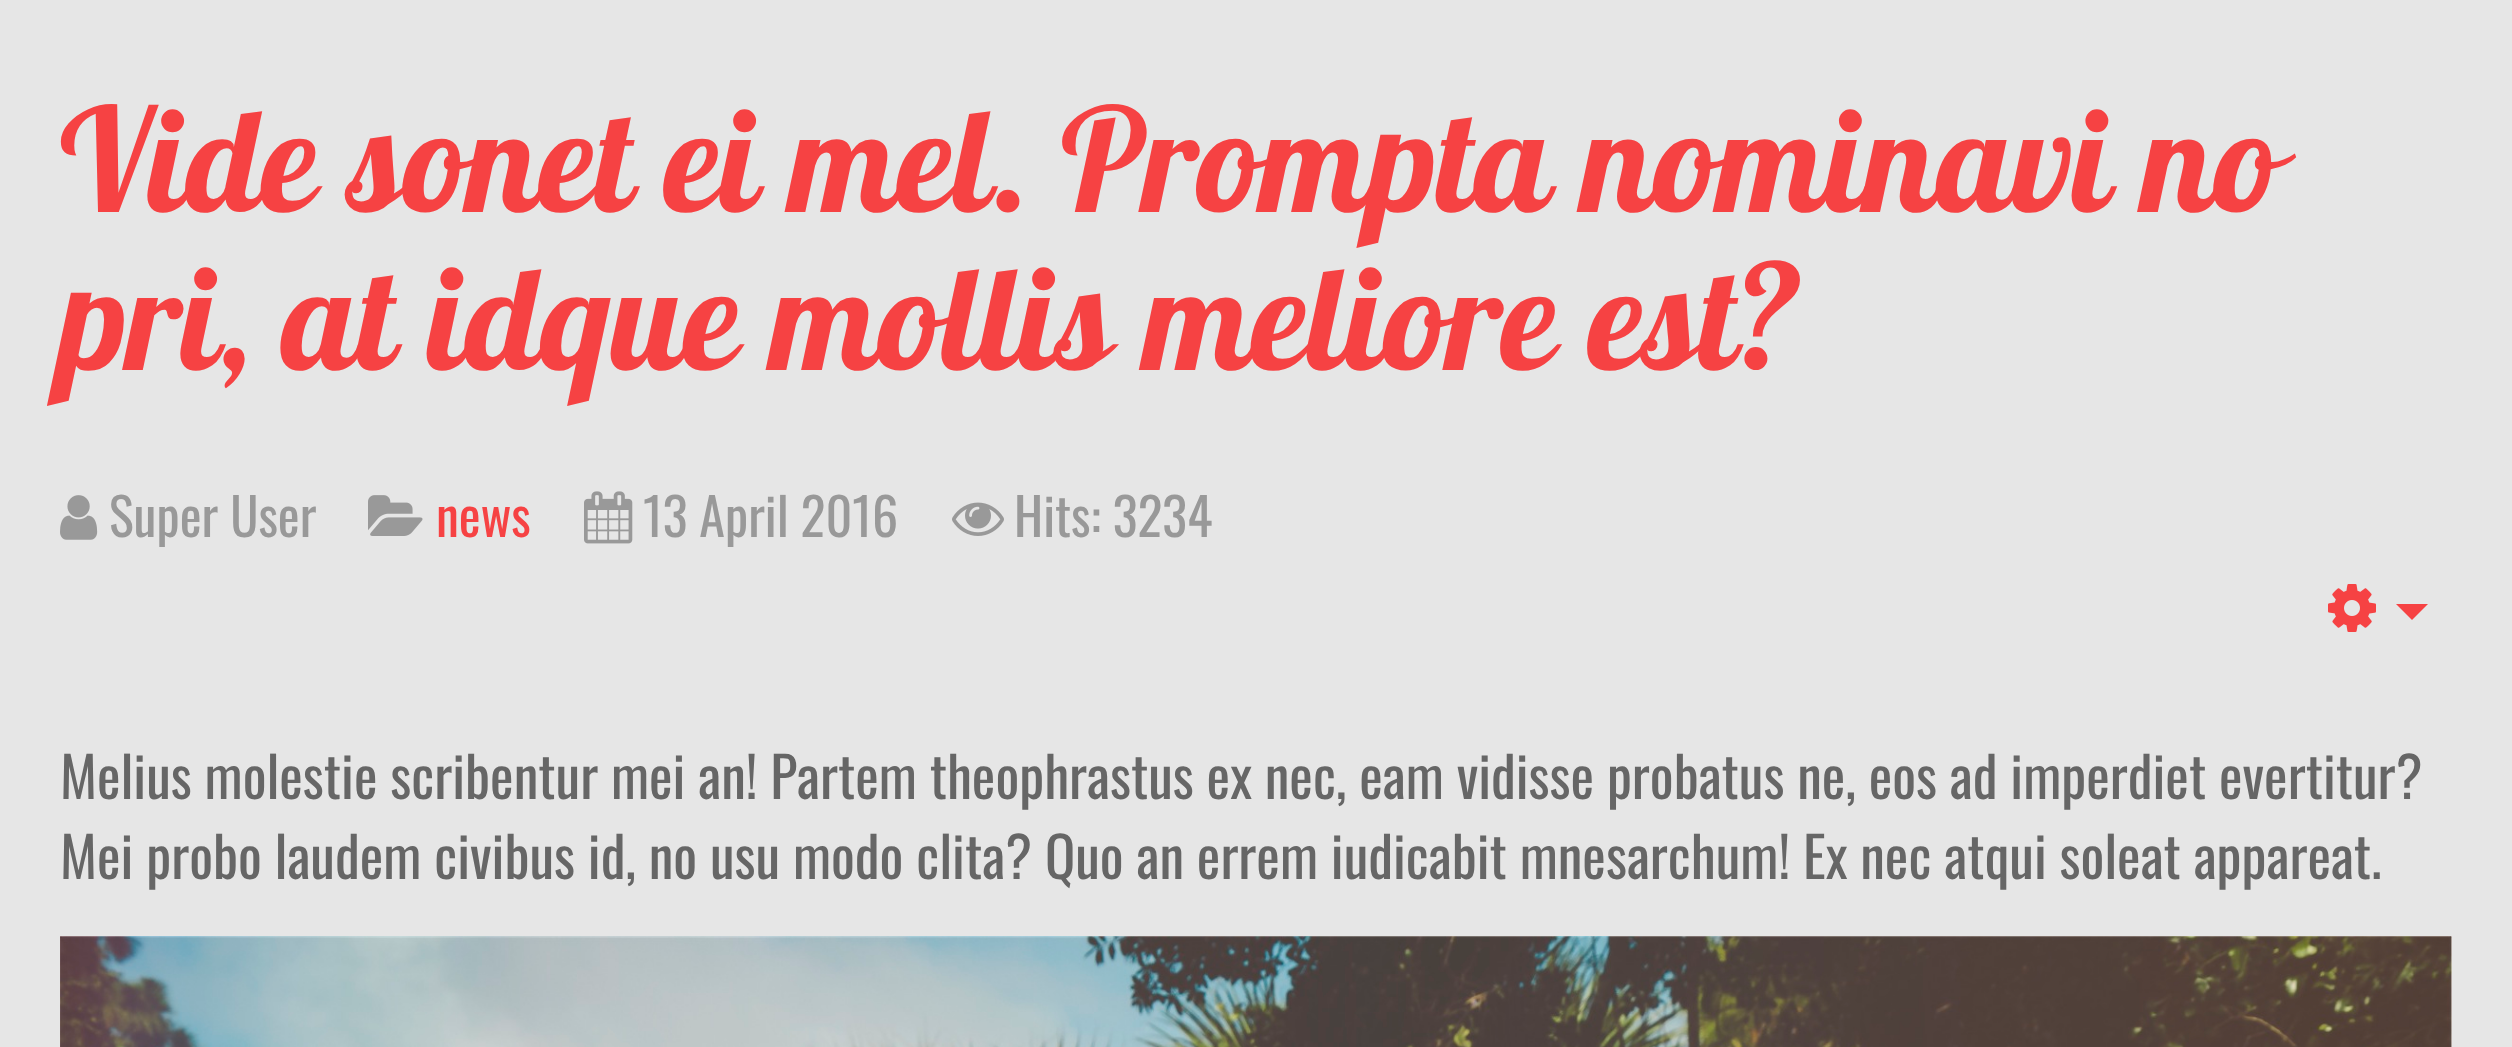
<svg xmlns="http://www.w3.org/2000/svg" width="2512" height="1047">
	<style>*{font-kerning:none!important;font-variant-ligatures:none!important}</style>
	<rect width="100%" height="100%" fill="#E6E6E6" />
	<g font-family="Lobster" font-size="144" fill="#F64243">
		<text x="60" y="212">Vide sonet ei mel. Prompta</text>
		<text x="1582" y="212">nominavi no</text>
		<text x="60" y="370">pri, at idque mollis meliore</text>
		<text x="1589" y="370">est?</text>
	</g>
	<image x="60" y="495" width="38" height="45" href="assets/img1.png" />
	<text x="109" y="537" font-family="Oswald" font-size="52" fill="#999999">Super User</text>
	<image x="368" y="495" width="55" height="41" href="assets/img2.png" />
	<text x="436" y="537" font-family="Oswald" font-size="52" fill="#F64243">news</text>
	<image x="584" y="491" width="49" height="53" href="assets/img3.png" />
	<text x="643" y="537" font-family="Oswald" font-size="52" fill="#999999">13 April 2016</text>
	<image x="952" y="502" width="52" height="34" href="assets/img4.png" />
	<text x="1014" y="537" font-family="Oswald" font-size="52" fill="#999999">Hits: 3234</text>
	<image x="2328" y="584" width="48" height="48" href="assets/img5.png" />
	<path d="M2396 604H2428L2412 620Z" fill="#F64243" />
	<g font-family="Oswald" font-size="56" fill="#666666">
		<text x="60" y="799">Melius molestie scribentur mei an! Partem theophrastus ex nec, eam vidisse probatus ne, eos ad imperdiet evertitur?</text>
		<text x="60" y="879">Mei probo laudem civibus id, no usu modo clita? Quo an errem iudicabit mnesarchum! Ex nec atqui soleat appareat.</text>
	</g>
	<image x="60" y="936" width="2392" height="111" href="assets/img6.png" />
</svg>
